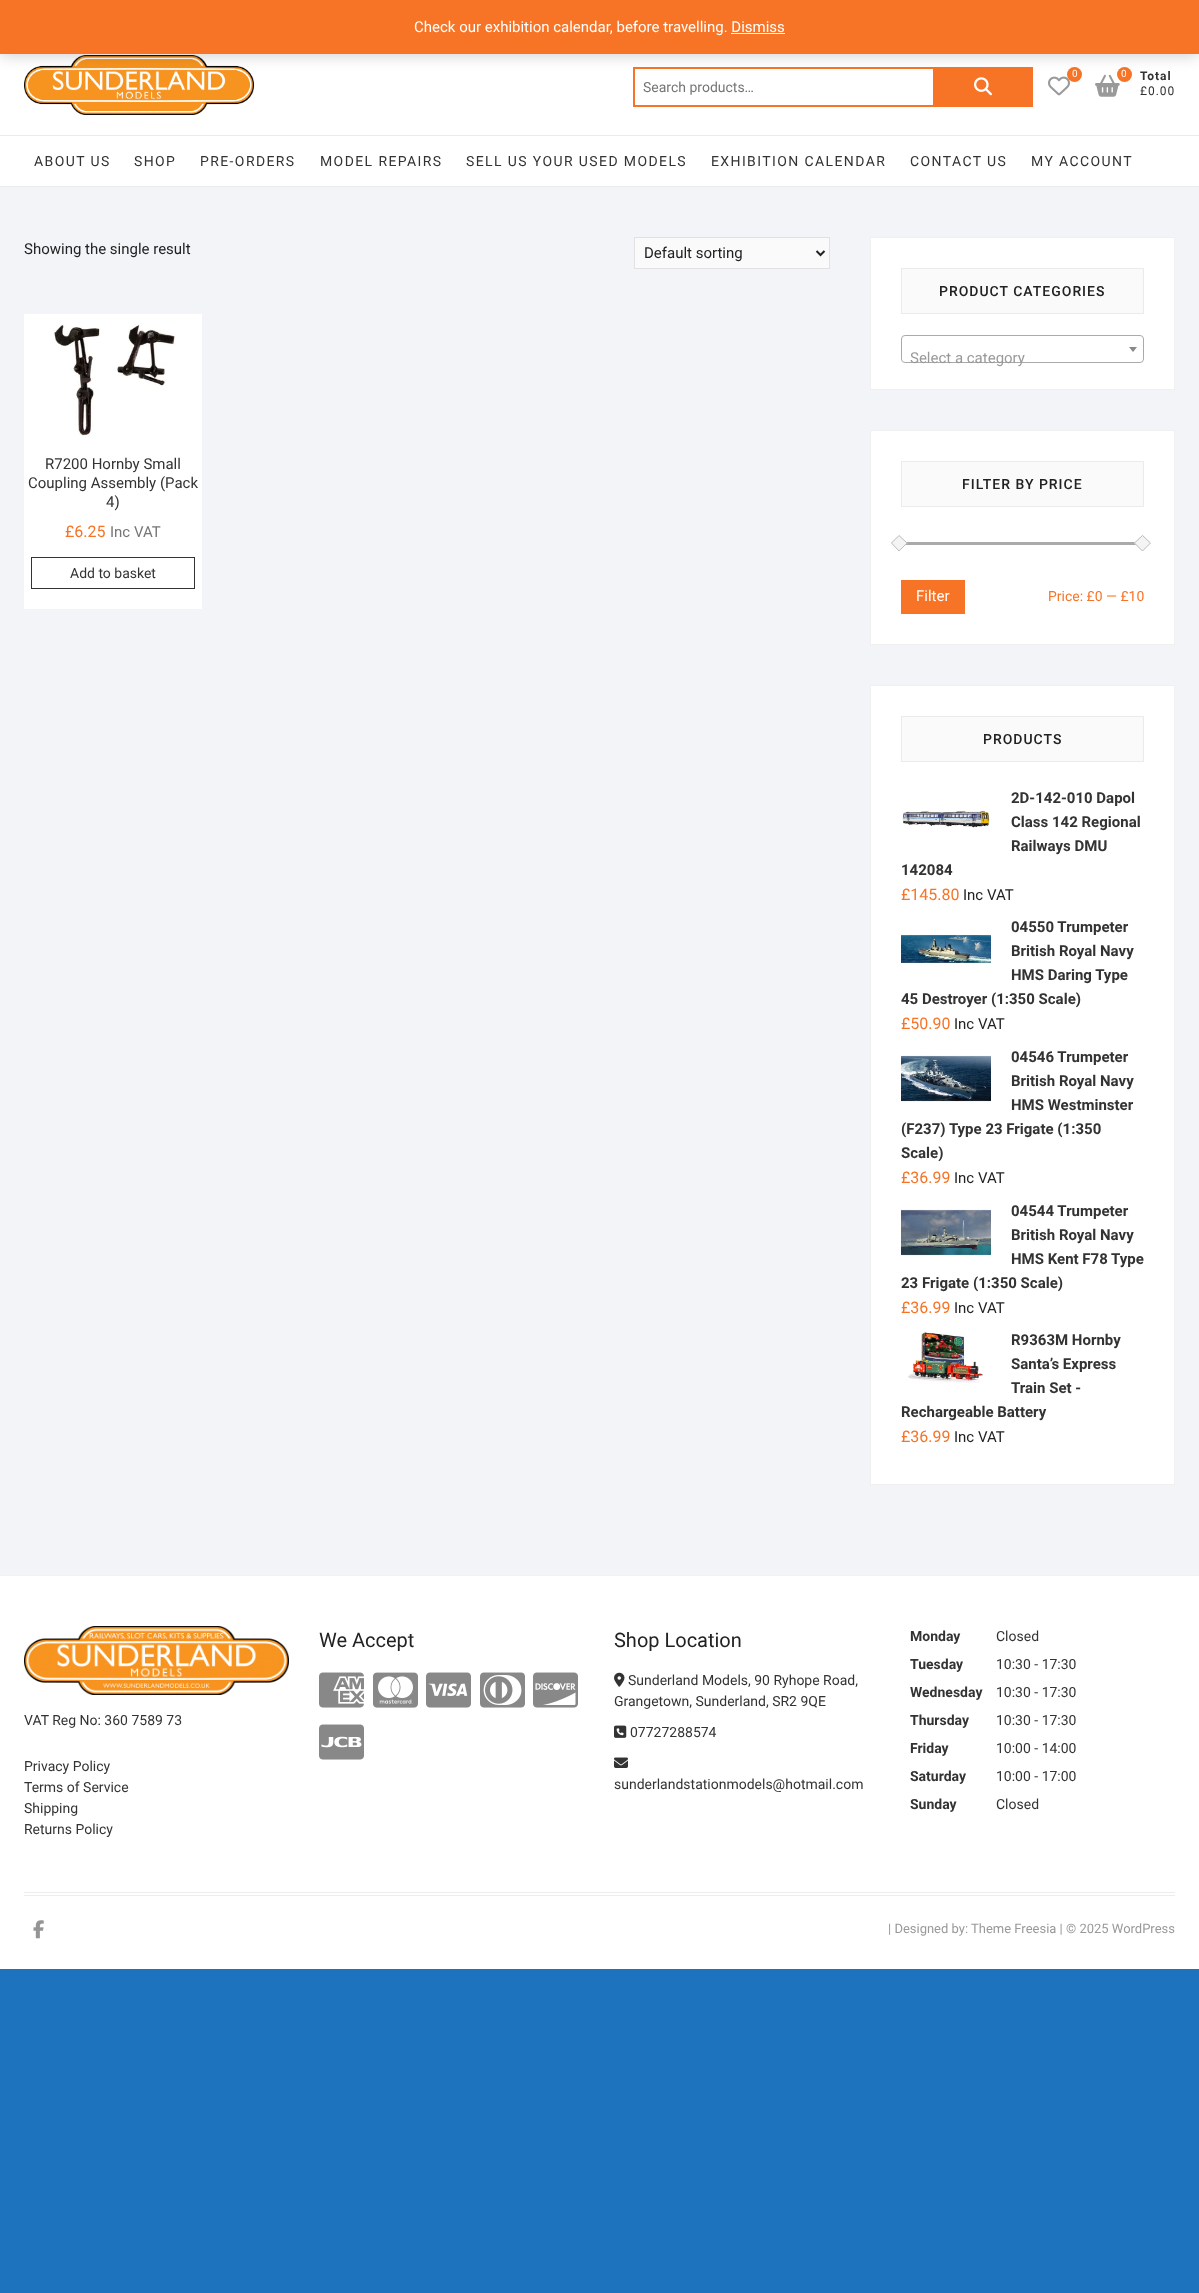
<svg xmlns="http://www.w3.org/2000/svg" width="1199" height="2293">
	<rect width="100%" height="100%" fill="#1E73BE" />
	<rect x="0" y="54" width="1199" height="132" fill="#FFFFFF" />
	<image x="24" y="55" width="230" height="60" href="assets/img1.png" />
	<rect x="633" y="67" width="300" height="2" fill="#F77426" />
	<rect x="633" y="105" width="300" height="2" fill="#F77426" />
	<rect x="633" y="67" width="2" height="40" fill="#F77426" />
	<rect x="933" y="67" width="100" height="40" fill="#F77426" />
	<image x="974" y="77" width="18" height="19" href="assets/img2.png" />
	<image x="1048" y="76" width="22" height="20" href="assets/img3.png" />
	<circle cx="1074.5" cy="74.5" r="7.5" fill="#F77426" />
	<image x="1095" y="74" width="25" height="23" href="assets/img4.png" />
	<circle cx="1124.5" cy="74.5" r="7.5" fill="#F77426" />
	<rect x="0" y="1" width="1199" height="54" fill="#000000" fill-opacity="0.2" filter="blur(7.5px)" />
	<rect x="0" y="0" width="1199" height="54" fill="#F77426" />
	<text x="414" y="32" font-family="Roboto" font-size="15" fill="#FFFFFF">Check our exhibition calendar, before travelling. Dismiss</text>
	<rect x="731" y="33" width="54" height="1" fill="#FCFBFE" />
	<rect x="0" y="187" width="1199" height="1388" fill="#F3F4F8" />
	<text x="643" y="92" font-family="Roboto" font-size="14" fill="#757575">Search products…</text>
	<g font-family="Roboto" font-size="10" fill="#FFFFFF">
		<text x="1072" y="77">0</text>
		<text x="1121" y="77">0</text>
	</g>
	<text x="1140" y="80" font-family="Roboto" font-size="12" font-weight="700" letter-spacing="1" fill="#333333">Total</text>
	<text x="1140" y="95" font-family="Roboto" font-size="12" letter-spacing="1" fill="#333333">£0.00</text>
	<rect x="0" y="135" width="1199" height="1" fill="#EBEBEB" />
	<rect x="0" y="186" width="1199" height="1" fill="#EBEBEB" />
	<g font-family="Roboto" font-size="14" letter-spacing="1.4" fill="#333333">
		<text x="34" y="166">ABOUT US</text>
		<text x="134" y="166">SHOP</text>
		<text x="200" y="166">PRE-ORDERS</text>
		<text x="320" y="166">MODEL REPAIRS</text>
		<text x="466" y="166">SELL US YOUR USED MODELS</text>
		<text x="711" y="166">EXHIBITION CALENDAR</text>
		<text x="910" y="166">CONTACT US</text>
		<text x="1031" y="166">MY ACCOUNT</text>
	</g>
	<text x="24" y="254" font-family="Roboto" font-size="15" fill="#222222">Showing the single result</text>
	<rect x="634.5" y="237.5" width="195" height="31" fill="#FAFAFA" stroke="#E1E1E1" />
	<path d="M816.5 251L820.5 255L824.5 251" fill="none" stroke="#222222" stroke-width="2" />
	<text x="644" y="258" font-family="Roboto" font-size="15" fill="#222222">Default sorting</text>
	<rect x="24" y="314" width="178" height="295" fill="#FFFFFF" />
	<image x="53" y="323" width="123" height="114" href="assets/img5.png" />
	<g font-family="Roboto" font-size="15" fill="#333333">
		<text x="45" y="469">R7200 Hornby Small</text>
		<text x="28" y="488">Coupling Assembly (Pack</text>
		<text x="106" y="507">4)</text>
	</g>
	<text x="65" y="537" font-family="Roboto" font-size="16" fill="#F77426">£6.25</text>
	<text x="110" y="537" font-family="Roboto" font-size="15" fill="#757575">Inc VAT</text>
	<rect x="31.5" y="557.5" width="163" height="31" fill="none" stroke="#333333" />
	<text x="70" y="578" font-family="Roboto" font-size="14" fill="#333333">Add to basket</text>
	<rect x="870.5" y="237.5" width="304" height="152" fill="#FFFFFF" stroke="#F0F0F0" />
	<rect x="901.5" y="268.5" width="242" height="45" fill="#FAFAFA" stroke="#EBEBEB" />
	<text x="939" y="296" font-family="Roboto" font-size="14" font-weight="500" letter-spacing="1" fill="#222222">PRODUCT CATEGORIES</text>
	<rect x="901.5" y="335.5" width="242" height="27" rx="3.5" fill="none" stroke="#AAAAAA" />
	<path d="M1129 347H1137L1133 352Z" fill="#888888" />
	<text x="910" y="363" font-family="Roboto" font-size="15" fill="#999999">Select a category</text>
	<rect x="870.5" y="430.5" width="304" height="214" fill="#FFFFFF" stroke="#F0F0F0" />
	<rect x="901.5" y="461.5" width="242" height="45" fill="#FAFAFA" stroke="#EBEBEB" />
	<text x="962" y="489" font-family="Roboto" font-size="14" font-weight="500" letter-spacing="1" fill="#222222">FILTER BY PRICE</text>
	<rect x="901" y="542" width="243" height="3" fill="#AAAAAA" />
	<path d="M899 534.5L907.5 543L899 551.5L890.5 543Z" fill="#F4F4F4" />
	<path d="M899 535.5L907 543L899 551L891.5 543Z" fill="none" stroke="#BDBDBD" />
	<path d="M1142.5 534.5L1151 543L1142.5 551.5L1134 543Z" fill="#F4F4F4" />
	<path d="M1142.5 535.5L1150.5 543L1142.5 551L1134.5 543Z" fill="none" stroke="#BDBDBD" />
	<rect x="901" y="580" width="64" height="34" fill="#F77426" />
	<text x="916" y="601" font-family="Roboto" font-size="15" fill="#FFFFFF">Filter</text>
	<text x="1048" y="601" font-family="Roboto" font-size="14" fill="#F77426">Price: £0 — £10</text>
	<rect x="870.5" y="685.5" width="304" height="799" fill="#FFFFFF" stroke="#F0F0F0" />
	<rect x="901.5" y="716.5" width="242" height="45" fill="#FAFAFA" stroke="#EBEBEB" />
	<text x="983" y="744" font-family="Roboto" font-size="14" font-weight="500" letter-spacing="1" fill="#222222">PRODUCTS</text>
	<text x="1011" y="803" font-family="Roboto" font-size="15" font-weight="700" fill="#333333">2D-142-010 Dapol</text>
	<image x="902" y="811" width="88" height="17" href="assets/img6.png" />
	<g font-family="Roboto" font-size="15" font-weight="700" fill="#333333">
		<text x="1011" y="827">Class 142 Regional</text>
		<text x="1011" y="851">Railways DMU</text>
		<text x="901" y="875">142084</text>
	</g>
	<text x="901" y="900" font-family="Roboto" font-size="16" fill="#F77426">£145.80</text>
	<text x="963" y="900" font-family="Roboto" font-size="15" fill="#222222">Inc VAT</text>
	<text x="1011" y="932" font-family="Roboto" font-size="15" font-weight="700" fill="#333333">04550 Trumpeter</text>
	<image x="901" y="934" width="90" height="30" href="assets/img7.png" />
	<g font-family="Roboto" font-size="15" font-weight="700" fill="#333333">
		<text x="1011" y="956">British Royal Navy</text>
		<text x="1011" y="980">HMS Daring Type</text>
		<text x="901" y="1004">45 Destroyer (1:350 Scale)</text>
	</g>
	<text x="901" y="1029" font-family="Roboto" font-size="16" fill="#F77426">£50.90</text>
	<text x="954" y="1029" font-family="Roboto" font-size="15" fill="#222222">Inc VAT</text>
	<image x="901" y="1055" width="90" height="47" href="assets/img8.png" />
	<g font-family="Roboto" font-size="15" font-weight="700" fill="#333333">
		<text x="1011" y="1062">04546 Trumpeter</text>
		<text x="1011" y="1086">British Royal Navy</text>
		<text x="1011" y="1110">HMS Westminster</text>
		<text x="901" y="1134">(F237) Type 23 Frigate (1:350</text>
		<text x="901" y="1158">Scale)</text>
	</g>
	<text x="901" y="1183" font-family="Roboto" font-size="16" fill="#F77426">£36.99</text>
	<text x="954" y="1183" font-family="Roboto" font-size="15" fill="#222222">Inc VAT</text>
	<image x="901" y="1209" width="90" height="47" href="assets/img9.png" />
	<g font-family="Roboto" font-size="15" font-weight="700" fill="#333333">
		<text x="1011" y="1216">04544 Trumpeter</text>
		<text x="1011" y="1240">British Royal Navy</text>
		<text x="1011" y="1264">HMS Kent F78 Type</text>
		<text x="901" y="1288">23 Frigate (1:350 Scale)</text>
	</g>
	<text x="901" y="1313" font-family="Roboto" font-size="16" fill="#F77426">£36.99</text>
	<text x="954" y="1313" font-family="Roboto" font-size="15" fill="#222222">Inc VAT</text>
	<image x="908" y="1332" width="75" height="51" href="assets/img10.png" />
	<g font-family="Roboto" font-size="15" font-weight="700" fill="#333333">
		<text x="1011" y="1345">R9363M Hornby</text>
		<text x="1011" y="1369">Santa’s Express</text>
		<text x="1011" y="1393">Train Set -</text>
		<text x="901" y="1417">Rechargeable Battery</text>
	</g>
	<text x="901" y="1442" font-family="Roboto" font-size="16" fill="#F77426">£36.99</text>
	<text x="954" y="1442" font-family="Roboto" font-size="15" fill="#222222">Inc VAT</text>
	<rect x="0" y="1576" width="1199" height="393" fill="#FFFFFF" />
	<rect x="0" y="1575" width="1199" height="1" fill="#F2F2F2" />
	<image x="24" y="1626" width="265" height="69" href="assets/img11.png" />
	<g font-family="Roboto" font-size="14" fill="#333333">
		<text x="24" y="1725">VAT Reg No: 360 7589 73</text>
		<text x="24" y="1771">Privacy Policy</text>
		<text x="24" y="1792">Terms of Service</text>
		<text x="24" y="1813">Shipping</text>
		<text x="24" y="1834">Returns Policy</text>
	</g>
	<text x="319" y="1647" font-family="Roboto" font-size="20" fill="#222222">We Accept</text>
	<image x="319" y="1672" width="45" height="36" href="assets/img12.png" />
	<image x="373" y="1672" width="45" height="36" href="assets/img13.png" />
	<image x="426" y="1672" width="45" height="36" href="assets/img14.png" />
	<image x="480" y="1672" width="45" height="36" href="assets/img15.png" />
	<image x="533" y="1672" width="45" height="36" href="assets/img16.png" />
	<image x="319" y="1724" width="45" height="36" href="assets/img17.png" />
	<text x="614" y="1647" font-family="Roboto" font-size="20" fill="#222222">Shop Location</text>
	<image x="614" y="1672" width="11" height="15" href="assets/img18.png" />
	<g font-family="Roboto" font-size="14" fill="#333333">
		<text x="628" y="1685">Sunderland Models, 90 Ryhope Road,</text>
		<text x="614" y="1706">Grangetown, Sunderland, SR2 9QE</text>
	</g>
	<image x="614" y="1725" width="13" height="13" href="assets/img19.png" />
	<text x="630" y="1737" font-family="Roboto" font-size="14" fill="#333333">07727288574</text>
	<image x="614" y="1757" width="14" height="11" href="assets/img20.png" />
	<text x="614" y="1789" font-family="Roboto" font-size="14" fill="#333333">sunderlandstationmodels@hotmail.com</text>
	<text x="910" y="1641" font-family="Roboto" font-size="14" font-weight="700" fill="#333333">Monday</text>
	<text x="996" y="1641" font-family="Roboto" font-size="14" fill="#333333">Closed</text>
	<text x="910" y="1669" font-family="Roboto" font-size="14" font-weight="700" fill="#333333">Tuesday</text>
	<text x="996" y="1669" font-family="Roboto" font-size="14" fill="#333333">10:30 - 17:30</text>
	<text x="910" y="1697" font-family="Roboto" font-size="14" font-weight="700" fill="#333333">Wednesday</text>
	<text x="996" y="1697" font-family="Roboto" font-size="14" fill="#333333">10:30 - 17:30</text>
	<text x="910" y="1725" font-family="Roboto" font-size="14" font-weight="700" fill="#333333">Thursday</text>
	<text x="996" y="1725" font-family="Roboto" font-size="14" fill="#333333">10:30 - 17:30</text>
	<text x="910" y="1753" font-family="Roboto" font-size="14" font-weight="700" fill="#333333">Friday</text>
	<text x="996" y="1753" font-family="Roboto" font-size="14" fill="#333333">10:00 - 14:00</text>
	<text x="910" y="1781" font-family="Roboto" font-size="14" font-weight="700" fill="#333333">Saturday</text>
	<text x="996" y="1781" font-family="Roboto" font-size="14" fill="#333333">10:00 - 17:00</text>
	<text x="910" y="1809" font-family="Roboto" font-size="14" font-weight="700" fill="#333333">Sunday</text>
	<text x="996" y="1809" font-family="Roboto" font-size="14" fill="#333333">Closed</text>
	<rect x="24" y="1895" width="1151" height="1" fill="#EDEDED" />
	<rect x="24" y="1892" width="1151" height="1" fill="#EDEDED" />
	<image x="33" y="1920" width="11" height="19" href="assets/img21.png" />
	<text x="888" y="1933" font-family="Roboto" font-size="13" fill="#999999">| Designed by: Theme Freesia | © 2025 WordPress</text>
</svg>
